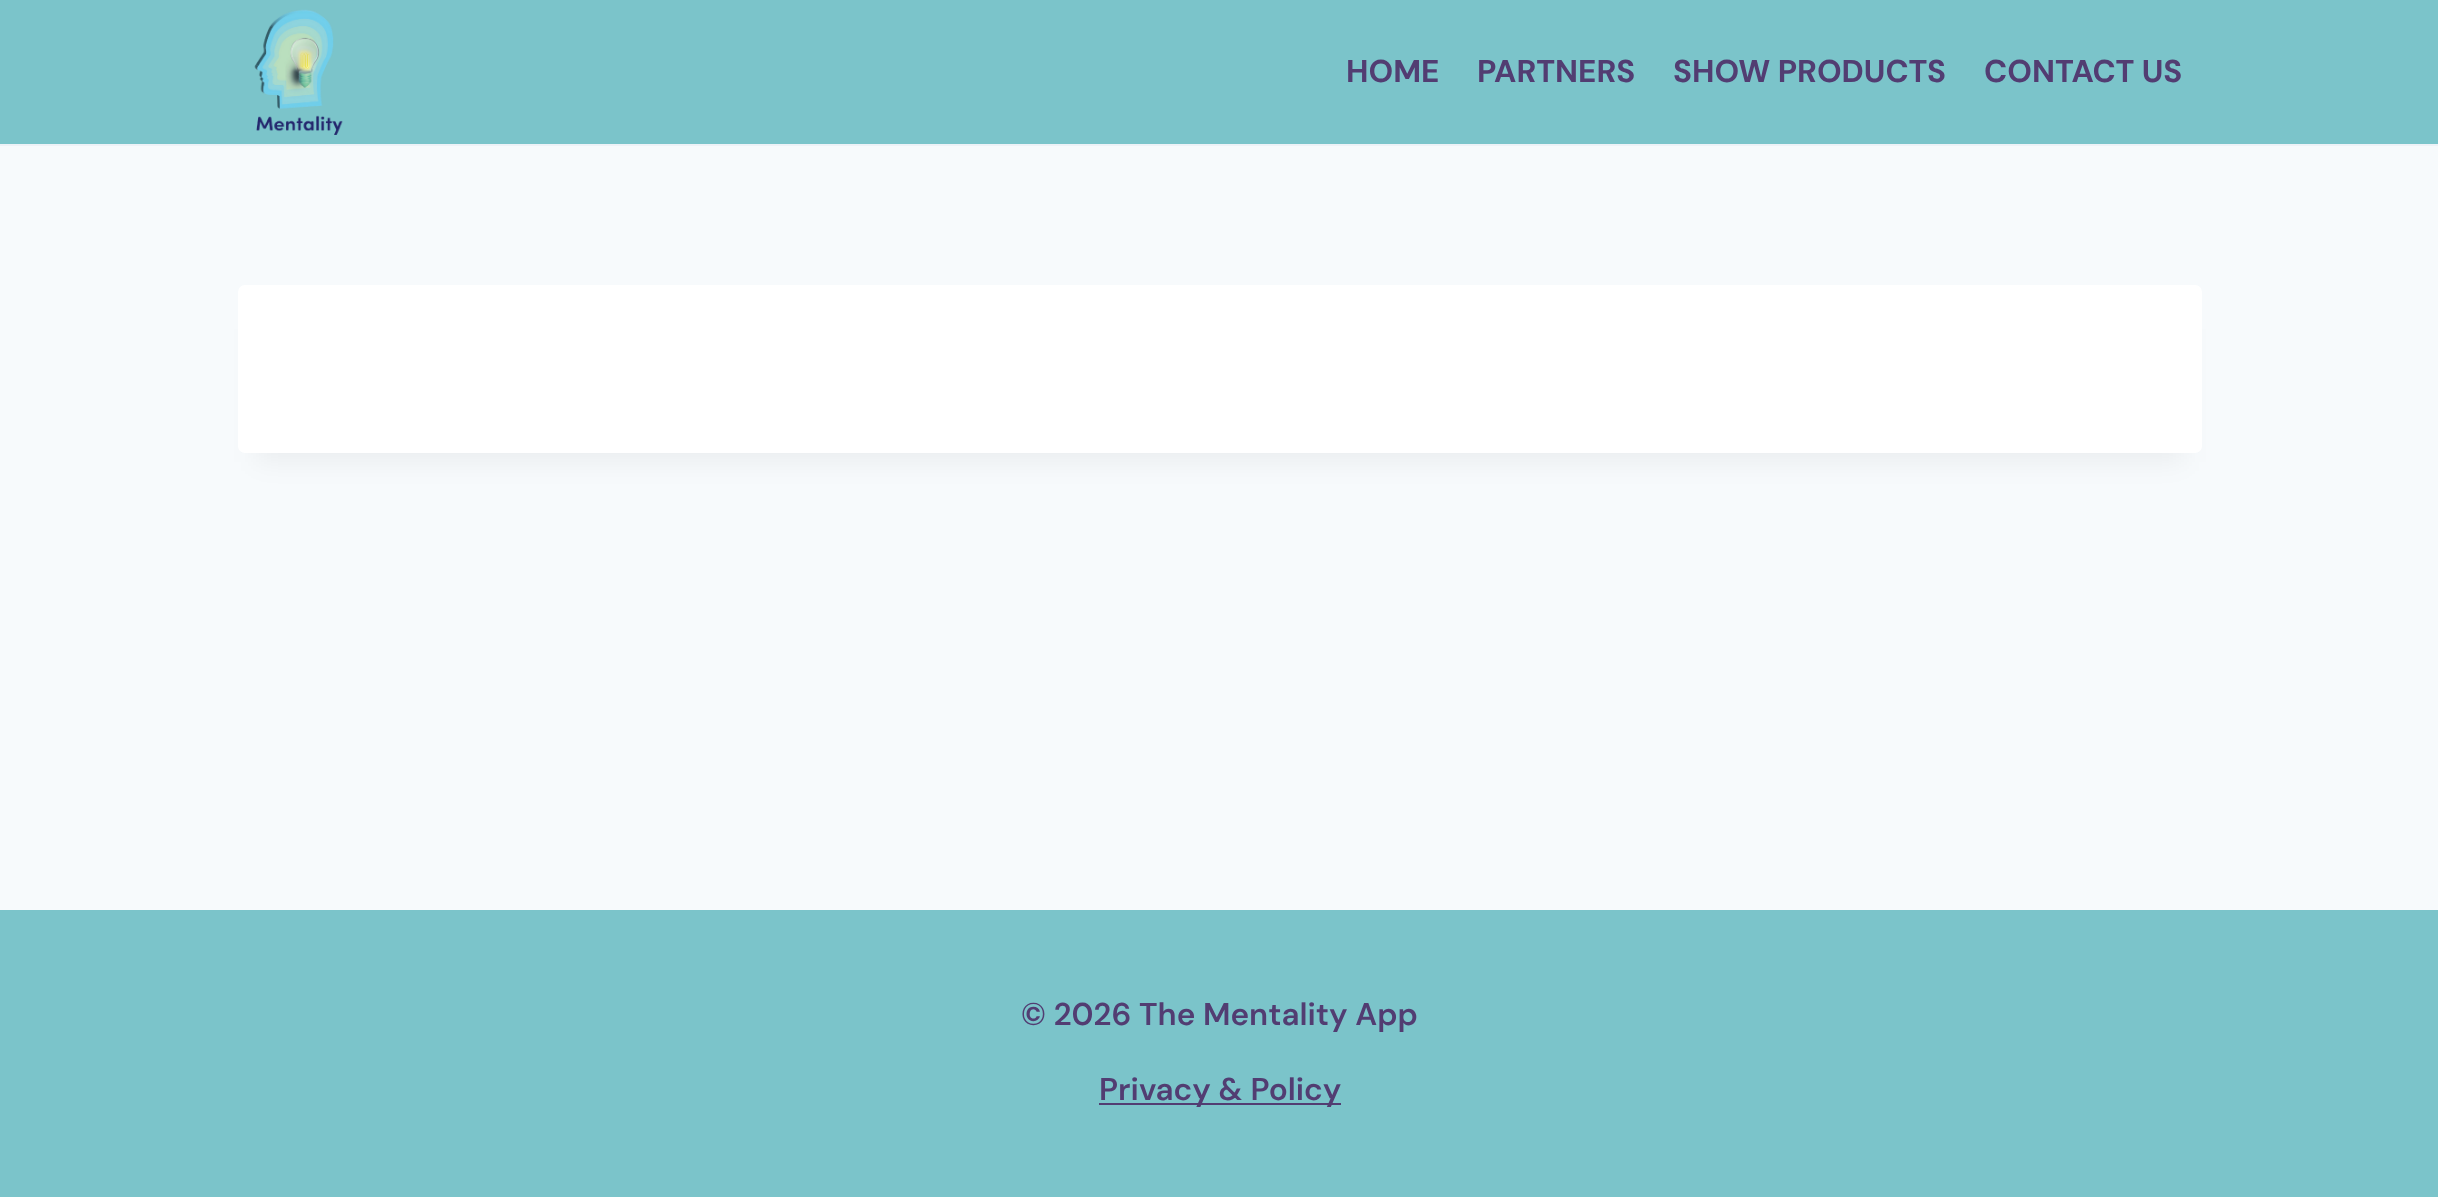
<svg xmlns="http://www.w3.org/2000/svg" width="2438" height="1197">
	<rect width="100%" height="100%" fill="#F7FAFC" />
	<rect x="0" y="0" width="2438" height="144" fill="#7BC4CA" />
	<rect x="0" y="144" width="2438" height="2" fill="#EDF2F7" />
	<image x="254" y="9" width="89" height="126" href="assets/img1.png" />
	<g font-family="DM Sans" font-size="31.5" font-weight="700" fill="#523D72">
		<text x="1346" y="82">HOME</text>
		<text x="1477" y="82">PARTNERS</text>
		<text x="1673" y="82">SHOW PRODUCTS</text>
		<text x="1984" y="82">CONTACT US</text>
	</g>
	<rect x="256" y="329" width="1928" height="133" fill="#000000" fill-opacity="0.05" filter="blur(13px)" />
	<rect x="238" y="285" width="1964" height="168" rx="7" fill="#FFFFFF" />
	<rect x="0" y="910" width="2438" height="287" fill="#7BC4CA" />
	<text x="1021" y="1025" font-family="DM Sans" font-size="31.5" font-weight="600" fill="#523D72">© 2026 The Mentality App</text>
	<rect x="1099" y="1103" width="242" height="2" fill="#523D72" />
	<text x="1099" y="1100" font-family="DM Sans" font-size="31.5" font-weight="600" fill="#523D72">Privacy &amp; Policy</text>
</svg>
